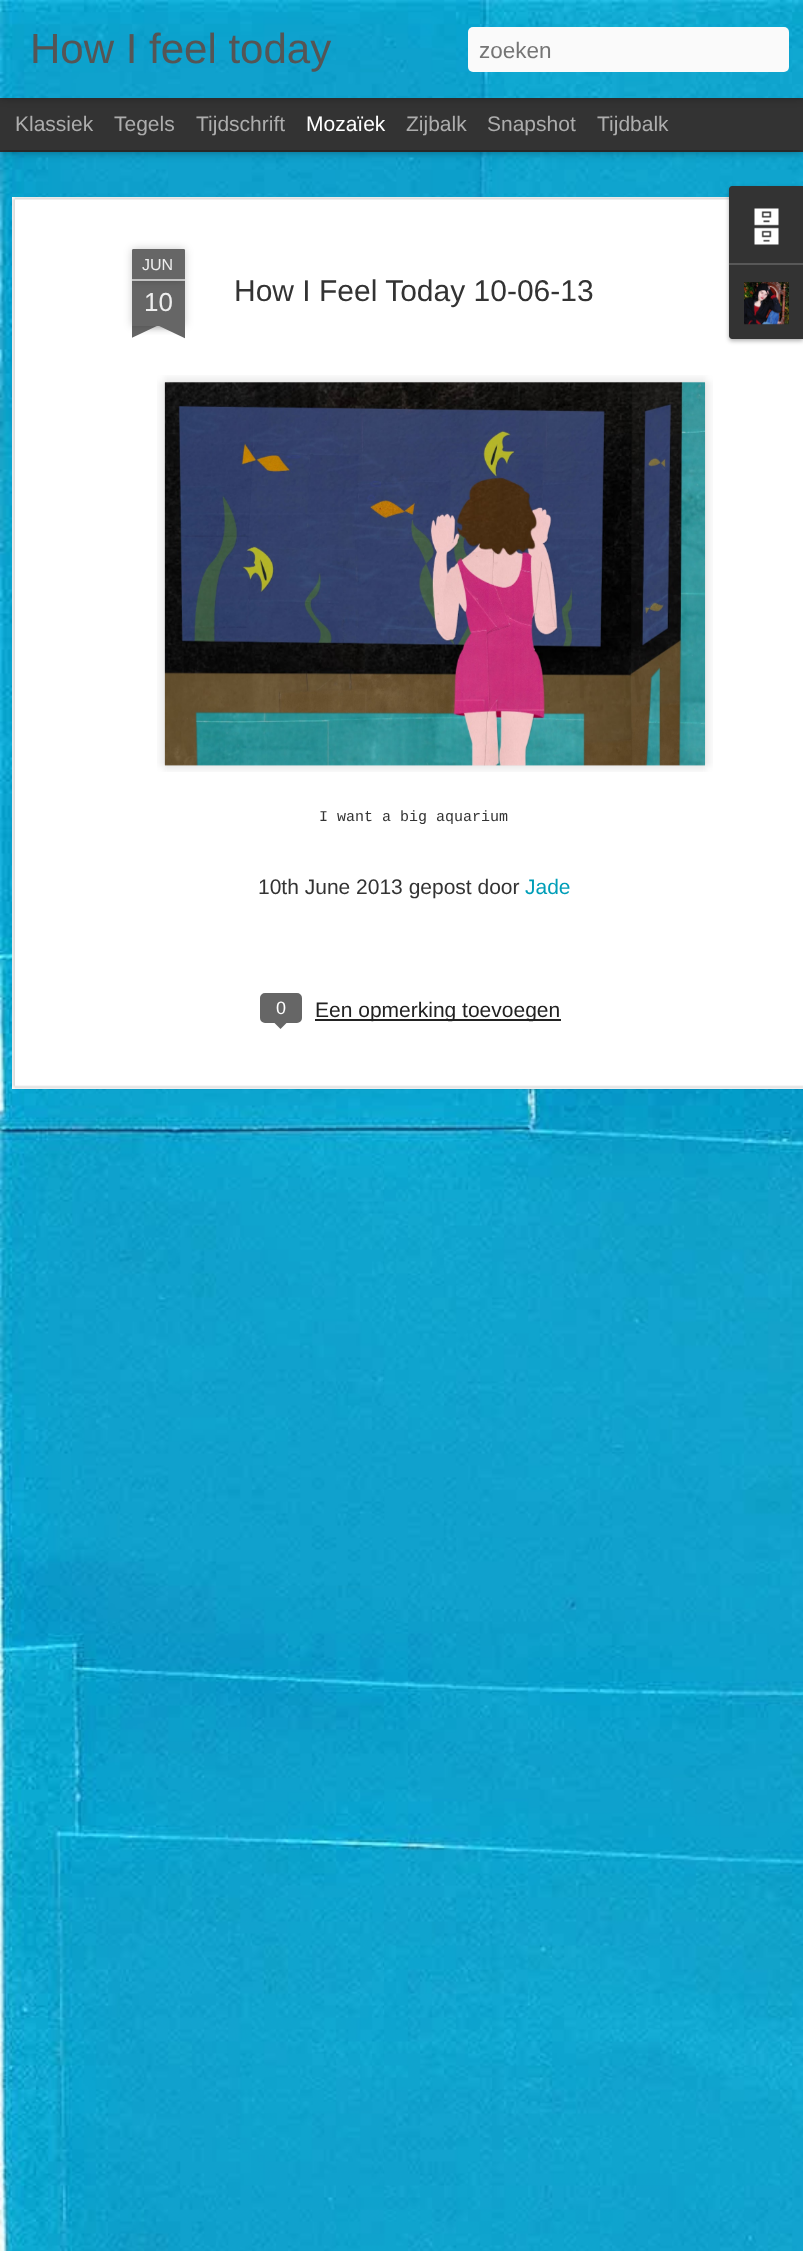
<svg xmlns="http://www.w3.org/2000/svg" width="803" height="2251">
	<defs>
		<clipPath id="clip1"><rect x="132" y="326" width="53" height="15" /></clipPath>
		<clipPath id="clip2"><rect x="132" y="326" width="53" height="15" /></clipPath>
	</defs>
	<rect width="100%" height="100%" fill="#333333" />
	<image x="0" y="152" width="803" height="2099" href="assets/img2.png" />
	<rect x="0" y="98" width="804" height="52" fill="#000000" fill-opacity="0.5" filter="blur(6px)" />
	<rect x="0" y="98" width="803" height="52" fill="#333333" />
	<rect x="0" y="0" width="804" height="98" fill="#000000" fill-opacity="0.3" filter="blur(4px)" />
	<image x="0" y="0" width="803" height="98" href="assets/img1.png" />
	<text x="30" y="63" font-family="Liberation Sans" font-size="42" fill="#555555">How I feel today</text>
	<rect x="468" y="27" width="321" height="45" rx="5" fill="#FAFAFA" />
	<text x="479" y="58" font-family="Liberation Sans" font-size="22.5" fill="#757575">zoeken</text>
	<g font-family="Liberation Sans" font-size="21" fill="#ADADAD">
		<text x="15" y="131">Klassiek</text>
		<text x="114" y="131">Tegels</text>
		<text x="196" y="131">Tijdschrift</text>
	</g>
	<text x="306" y="131" font-family="Liberation Sans" font-size="21" fill="#FFFFFF">Mozaïek</text>
	<g font-family="Liberation Sans" font-size="21" fill="#ADADAD">
		<text x="406" y="131">Zijbalk</text>
		<text x="487" y="131">Snapshot</text>
		<text x="597" y="131">Tijdbalk</text>
	</g>
	<rect x="12" y="197" width="791" height="892" fill="#FFFFFF" />
	<image x="12" y="197" width="791" height="893" href="assets/img3.png" />
	<rect x="132" y="281" width="53" height="45" fill="#000000" fill-opacity="0.2" filter="blur(4px)" />
	<rect x="132" y="281" width="53" height="45" fill="#666666" />
	<rect x="132" y="249" width="53" height="32" rx="1.5" fill="#000000" fill-opacity="0.2" filter="blur(4px)" />
	<path d="M133.5 249H183.5C184.5 249 185 249.5 185 250.5V281H132V250.5C132 249.5 132.5 249 133.5 249Z" fill="#666666" />
	<rect x="132" y="279" width="53" height="2" fill="#C2C2C2" />
	<text x="142" y="270" font-family="Liberation Sans" font-size="16" fill="#EEEEEE">JUN</text>
	<text x="144" y="311" font-family="Liberation Sans" font-size="26" fill="#EEEEEE">10</text>
	<g clip-path="url(#clip1)">
		<rect x="119" y="311" width="75" height="15" fill="#000000" fill-opacity="0.2" filter="blur(4px)" />
	</g>
	<g clip-path="url(#clip2)">
		<path d="M119 327L187 295L193 309L125 341Z" fill="#666666" />
	</g>
	<g clip-path="url(#clip1)">
		<rect x="123" y="311" width="75" height="15" fill="#000000" fill-opacity="0.2" filter="blur(4px)" />
	</g>
	<g clip-path="url(#clip2)">
		<path d="M130 295L198 327L191 341L123 309Z" fill="#666666" />
	</g>
	<text x="234" y="301" font-family="Liberation Sans" font-size="30" fill="#333333">How I Feel Today 10-06-13</text>
	<image x="157" y="375" width="556" height="397" href="assets/img4.png" />
	<image x="164" y="382" width="541" height="384" href="assets/img5.png" />
	<text x="319" y="821" font-family="Liberation Mono" font-size="15" fill="#333333">I want a big aquarium</text>
	<text x="258" y="894" font-family="Liberation Sans" font-size="21" fill="#333333">10th June 2013 gepost door</text>
	<text x="525" y="894" font-family="Liberation Sans" font-size="21" fill="#009EB8">Jade</text>
	<rect x="261" y="994" width="40" height="28" rx="4" fill="#666666" stroke="#666666" stroke-width="2" />
	<text x="276" y="1014" font-family="Liberation Sans" font-size="18" fill="#FFFFFF">0</text>
	<path d="M273 1021.5H288L280.5 1029Z" fill="#666666" />
	<rect x="315" y="1019" width="246" height="2" fill="#222222" />
	<text x="315" y="1017" font-family="Liberation Sans" font-size="21" fill="#222222">Een opmerking toevoegen</text>
	<rect x="729" y="188" width="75" height="153" rx="3" fill="#000000" fill-opacity="0.3" filter="blur(2px)" />
	<path d="M732 186H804V263H729V189C729 187.5 730.5 186 732 186Z" fill="#333333" />
	<image x="754" y="208" width="25" height="37" href="assets/img6.png" />
	<path d="M729 263H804V339H732C730.5 339 729 337.5 729 336Z" fill="#333333" />
	<rect x="729" y="263" width="74" height="2" fill="#585858" />
	<image x="744" y="282" width="45" height="43" href="assets/img7.png" />
</svg>
